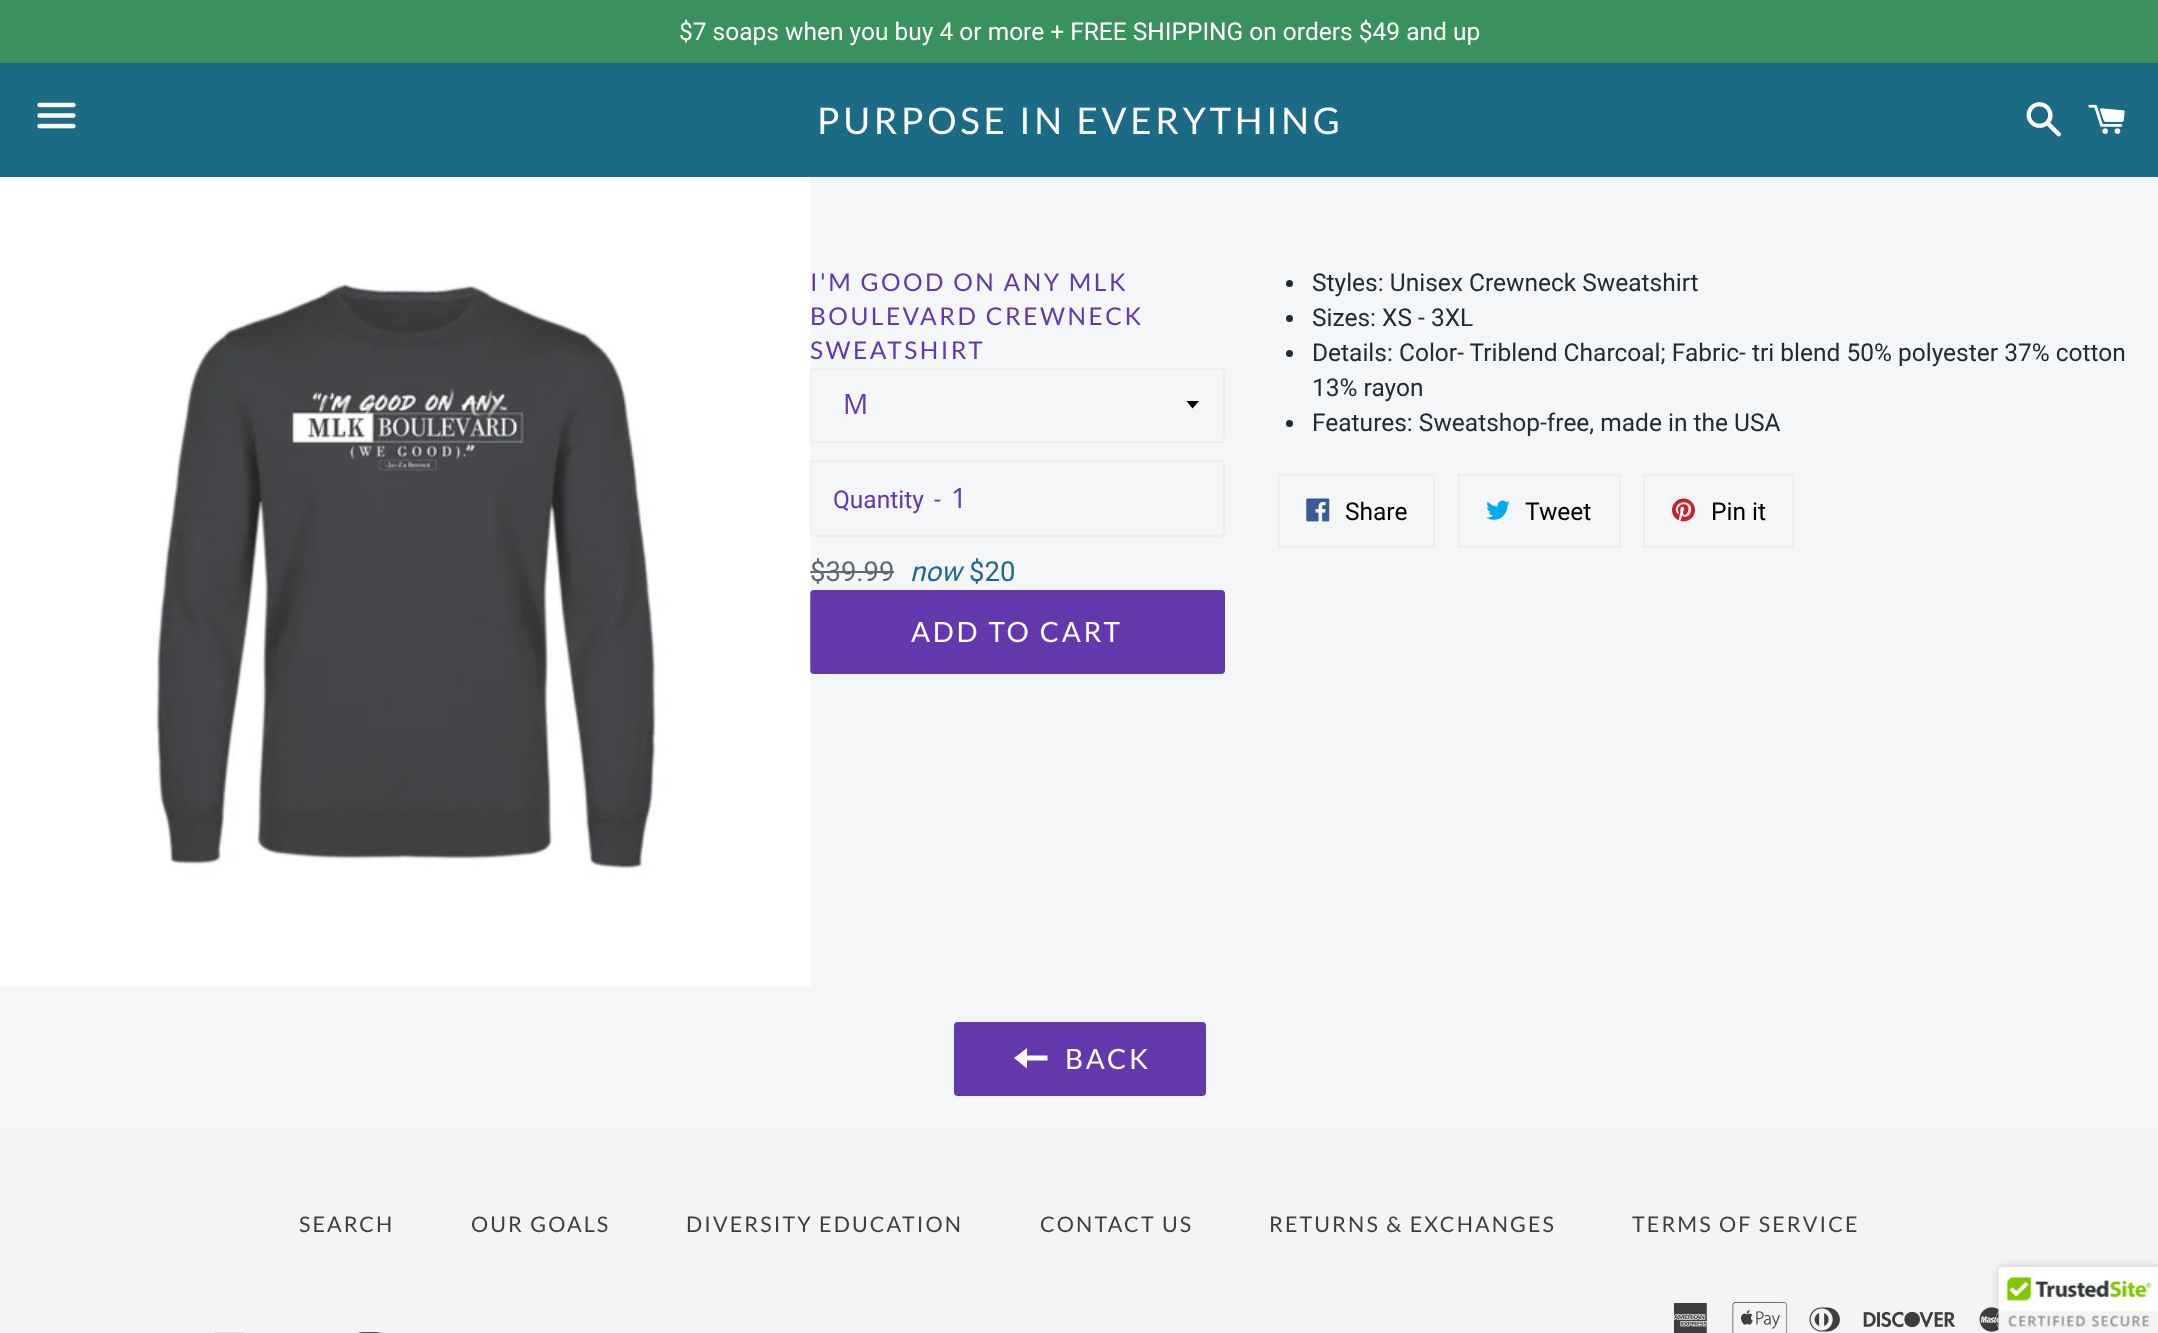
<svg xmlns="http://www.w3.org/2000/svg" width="2158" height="1333">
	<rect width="100%" height="100%" fill="#F4F6F8" />
	<rect x="0" y="0" width="2158" height="63" fill="#39915D" />
	<text x="679" y="40" font-family="Roboto" font-size="24.5" fill="#FFFFFF">$7 soaps when you buy 4 or more + FREE SHIPPING on orders $49 and up</text>
	<rect x="0" y="63" width="2158" height="114" fill="#1B6B87" />
	<image x="37" y="102" width="39" height="27" href="assets/img1.png" />
	<text x="817" y="134" font-family="Lato" font-size="36.75" letter-spacing="3.7" fill="#FFFFFF">PURPOSE IN EVERYTHING</text>
	<image x="2026" y="102" width="35" height="35" href="assets/img2.png" />
	<image x="2088" y="104" width="37" height="30" href="assets/img3.png" />
	<text x="810" y="359" font-family="Lato" font-size="24.5" letter-spacing="2.5" fill="#6338AD">SWEATSHIRT</text>
	<rect x="811" y="369" width="413" height="73" rx="3" fill="none" stroke="#ECEFF1" stroke-width="2" />
	<rect x="811" y="461" width="413" height="75" rx="3" fill="none" stroke="#ECEFF1" stroke-width="2" />
	<rect x="810" y="571" width="84" height="2" fill="#606870" />
	<rect x="810" y="590" width="415" height="84" rx="4" fill="#6338AD" />
	<image x="0" y="177" width="811" height="810" href="assets/img4.png" />
	<g font-family="Lato" font-size="24.5" letter-spacing="2.5" fill="#6338AD">
		<text x="810" y="291">I'M GOOD ON ANY MLK</text>
		<text x="810" y="325">BOULEVARD CREWNECK</text>
	</g>
	<path d="M1186.5 401L1192.5 408.5L1199 401Z" fill="#000000" />
	<text x="843" y="414" font-family="Open Sans" font-size="28" fill="#6338AD">M</text>
	<g font-family="Roboto" font-size="24.5" fill="#6338AD">
		<text x="833" y="508">Quantity</text>
		<text x="934" y="508">-</text>
	</g>
	<text x="951" y="508" font-family="Open Sans" font-size="28" fill="#6338AD">1</text>
	<text x="810" y="581" font-family="Roboto" font-size="27.5" fill="#606870">$39.99</text>
	<text x="910" y="581" font-family="Roboto" font-size="27.5" font-style="italic" fill="#1B6B87">now</text>
	<text x="969" y="581" font-family="Roboto" font-size="27.5" fill="#1B6B87">$20</text>
	<text x="911" y="642" font-family="Lato" font-size="28" letter-spacing="2.75" fill="#FFFFFF">ADD TO CART</text>
	<circle cx="1289.5" cy="283.5" r="3.5" fill="#212B36" />
	<text x="1312" y="291" font-family="Roboto" font-size="24.5" fill="#212B36">Styles: Unisex Crewneck Sweatshirt</text>
	<circle cx="1289.5" cy="318.5" r="3.5" fill="#212B36" />
	<text x="1312" y="326" font-family="Roboto" font-size="24.5" fill="#212B36">Sizes: XS - 3XL</text>
	<circle cx="1289.5" cy="353.5" r="3.5" fill="#212B36" />
	<g font-family="Roboto" font-size="24.5" fill="#212B36">
		<text x="1312" y="361">Details: Color- Triblend Charcoal; Fabric- tri blend 50% polyester 37% cotton</text>
		<text x="1312" y="396">13% rayon</text>
	</g>
	<circle cx="1289.5" cy="423.5" r="3.5" fill="#212B36" />
	<text x="1312" y="431" font-family="Roboto" font-size="24.5" fill="#212B36">Features: Sweatshop-free, made in the USA</text>
	<rect x="1279" y="475" width="155" height="72" fill="none" stroke="#ECEFF1" stroke-width="2" />
	<image x="1306" y="498" width="24" height="24" href="assets/img5.png" />
	<text x="1345" y="520" font-family="Roboto" font-size="24.5" fill="#000000">Share</text>
	<rect x="1459" y="475" width="161" height="72" fill="none" stroke="#ECEFF1" stroke-width="2" />
	<image x="1486" y="500" width="24" height="20" href="assets/img6.png" />
	<text x="1525" y="520" font-family="Roboto" font-size="24.5" fill="#000000">Tweet</text>
	<rect x="1644" y="475" width="149" height="72" fill="none" stroke="#ECEFF1" stroke-width="2" />
	<image x="1672" y="498" width="23" height="24" href="assets/img7.png" />
	<text x="1711" y="520" font-family="Roboto" font-size="24.5" fill="#000000">Pin it</text>
	<rect x="954" y="1022" width="252" height="74" rx="4" fill="#6338AD" />
	<path d="M1027 1055.5V1048L1014 1058L1027 1068.5V1060.5H1047.5V1055.5Z" fill="#FFFFFF" />
	<text x="1065" y="1069" font-family="Lato" font-size="28" letter-spacing="2.75" fill="#FFFFFF">BACK</text>
	<rect x="0" y="1131" width="2158" height="202" fill="#F4F4F4" />
	<g font-family="Lato" font-size="21.5" letter-spacing="2.1" fill="#3E3E3E">
		<text x="299" y="1232">SEARCH</text>
		<text x="471" y="1232">OUR GOALS</text>
		<text x="686" y="1232">DIVERSITY EDUCATION</text>
		<text x="1040" y="1232">CONTACT US</text>
		<text x="1269" y="1232">RETURNS &amp; EXCHANGES</text>
		<text x="1632" y="1232">TERMS OF SERVICE</text>
	</g>
	<image x="214" y="1332" width="31" height="1" href="assets/img8.png" />
	<image x="358" y="1332" width="23" height="1" href="assets/img9.png" />
	<image x="1674" y="1303" width="33" height="30" href="assets/img10.png" />
	<image x="1732" y="1302" width="56" height="31" href="assets/img11.png" />
	<image x="1809" y="1307" width="31" height="25" href="assets/img12.png" />
	<image x="1863" y="1311" width="93" height="17" href="assets/img13.png" />
	<image x="1979" y="1307" width="20" height="25" href="assets/img14.png" />
	<rect x="1999" y="1267" width="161" height="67" rx="4" fill="#000000" fill-opacity="0.2" filter="blur(4.5px)" />
	<path d="M2003 1267H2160V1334H1999V1271C1999 1269 2001 1267 2003 1267Z" fill="#FFFFFF" />
	<image x="1998" y="1267" width="160" height="66" href="assets/img15.png" />
</svg>
